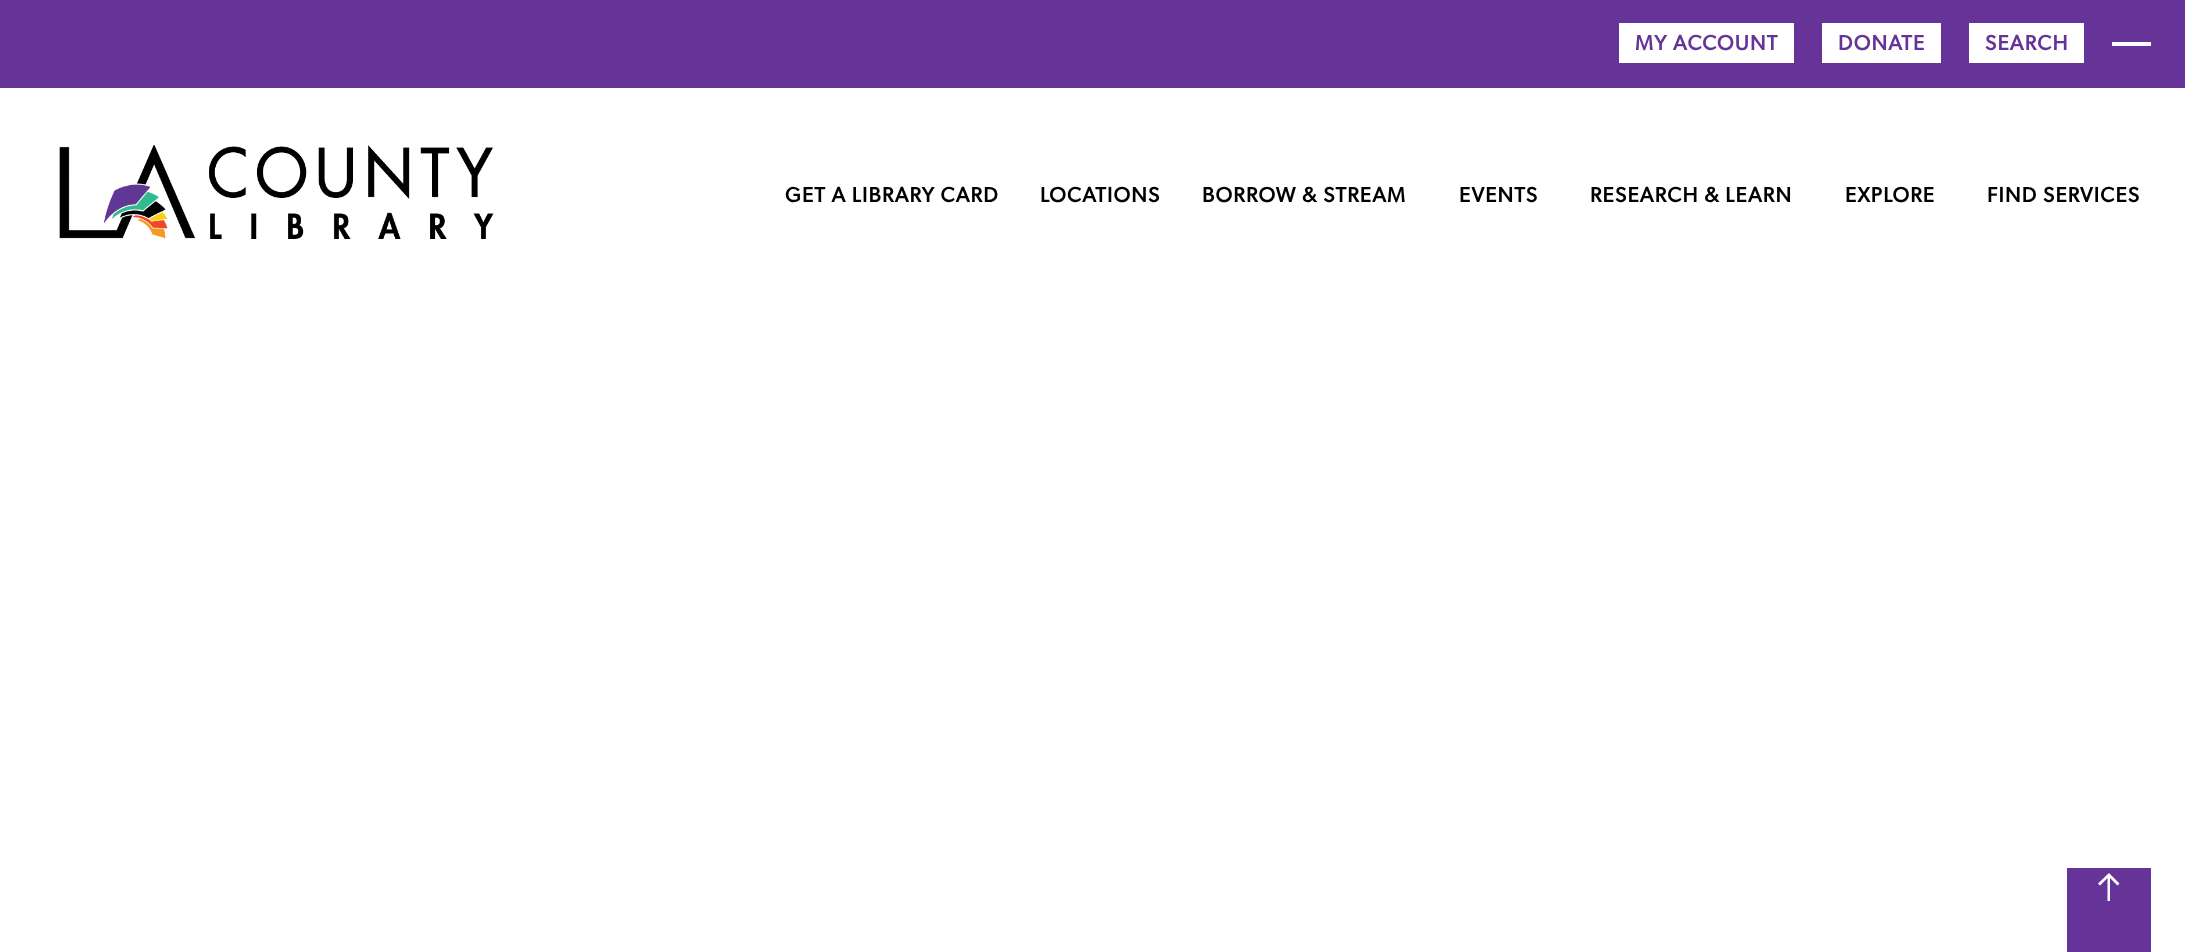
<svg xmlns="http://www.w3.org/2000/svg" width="2185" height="952">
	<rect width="100%" height="100%" fill="#FFFFFF" />
	<rect x="0" y="0" width="2185" height="88" fill="#663399" />
	<rect x="1619" y="23" width="175" height="40" fill="#FFFFFF" />
	<text x="1635" y="50" font-family="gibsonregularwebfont" font-size="21" font-weight="700" letter-spacing="1.25" fill="#663399">MY ACCOUNT</text>
	<rect x="1822" y="23" width="119" height="40" fill="#FFFFFF" />
	<text x="1838" y="50" font-family="gibsonregularwebfont" font-size="21" font-weight="700" letter-spacing="1.25" fill="#663399">DONATE</text>
	<rect x="1969" y="23" width="115" height="40" fill="#FFFFFF" />
	<text x="1985" y="50" font-family="gibsonregularwebfont" font-size="21" font-weight="700" letter-spacing="1.25" fill="#663399">SEARCH</text>
	<rect x="2112" y="42" width="39" height="4" fill="#FFFFFF" />
	<image x="59" y="145" width="435" height="94" href="assets/img1.png" />
	<g font-family="gibsonregularwebfont" font-size="21" font-weight="700" letter-spacing="1.25" fill="#000000">
		<text x="785" y="202">GET A LIBRARY CARD</text>
		<text x="1040" y="202">LOCATIONS</text>
		<text x="1202" y="202">BORROW &amp; STREAM</text>
		<text x="1459" y="202">EVENTS</text>
		<text x="1590" y="202">RESEARCH &amp; LEARN</text>
		<text x="1845" y="202">EXPLORE</text>
		<text x="1987" y="202">FIND SERVICES</text>
	</g>
	<rect x="2067" y="868" width="84" height="84" fill="#663399" />
	<path d="M2110 901V878L2117.5 885.5L2119.5 883.5L2109 873L2098 883.5L2100 885.5L2107.5 878V901Z" fill="#FFFFFF" />
</svg>
